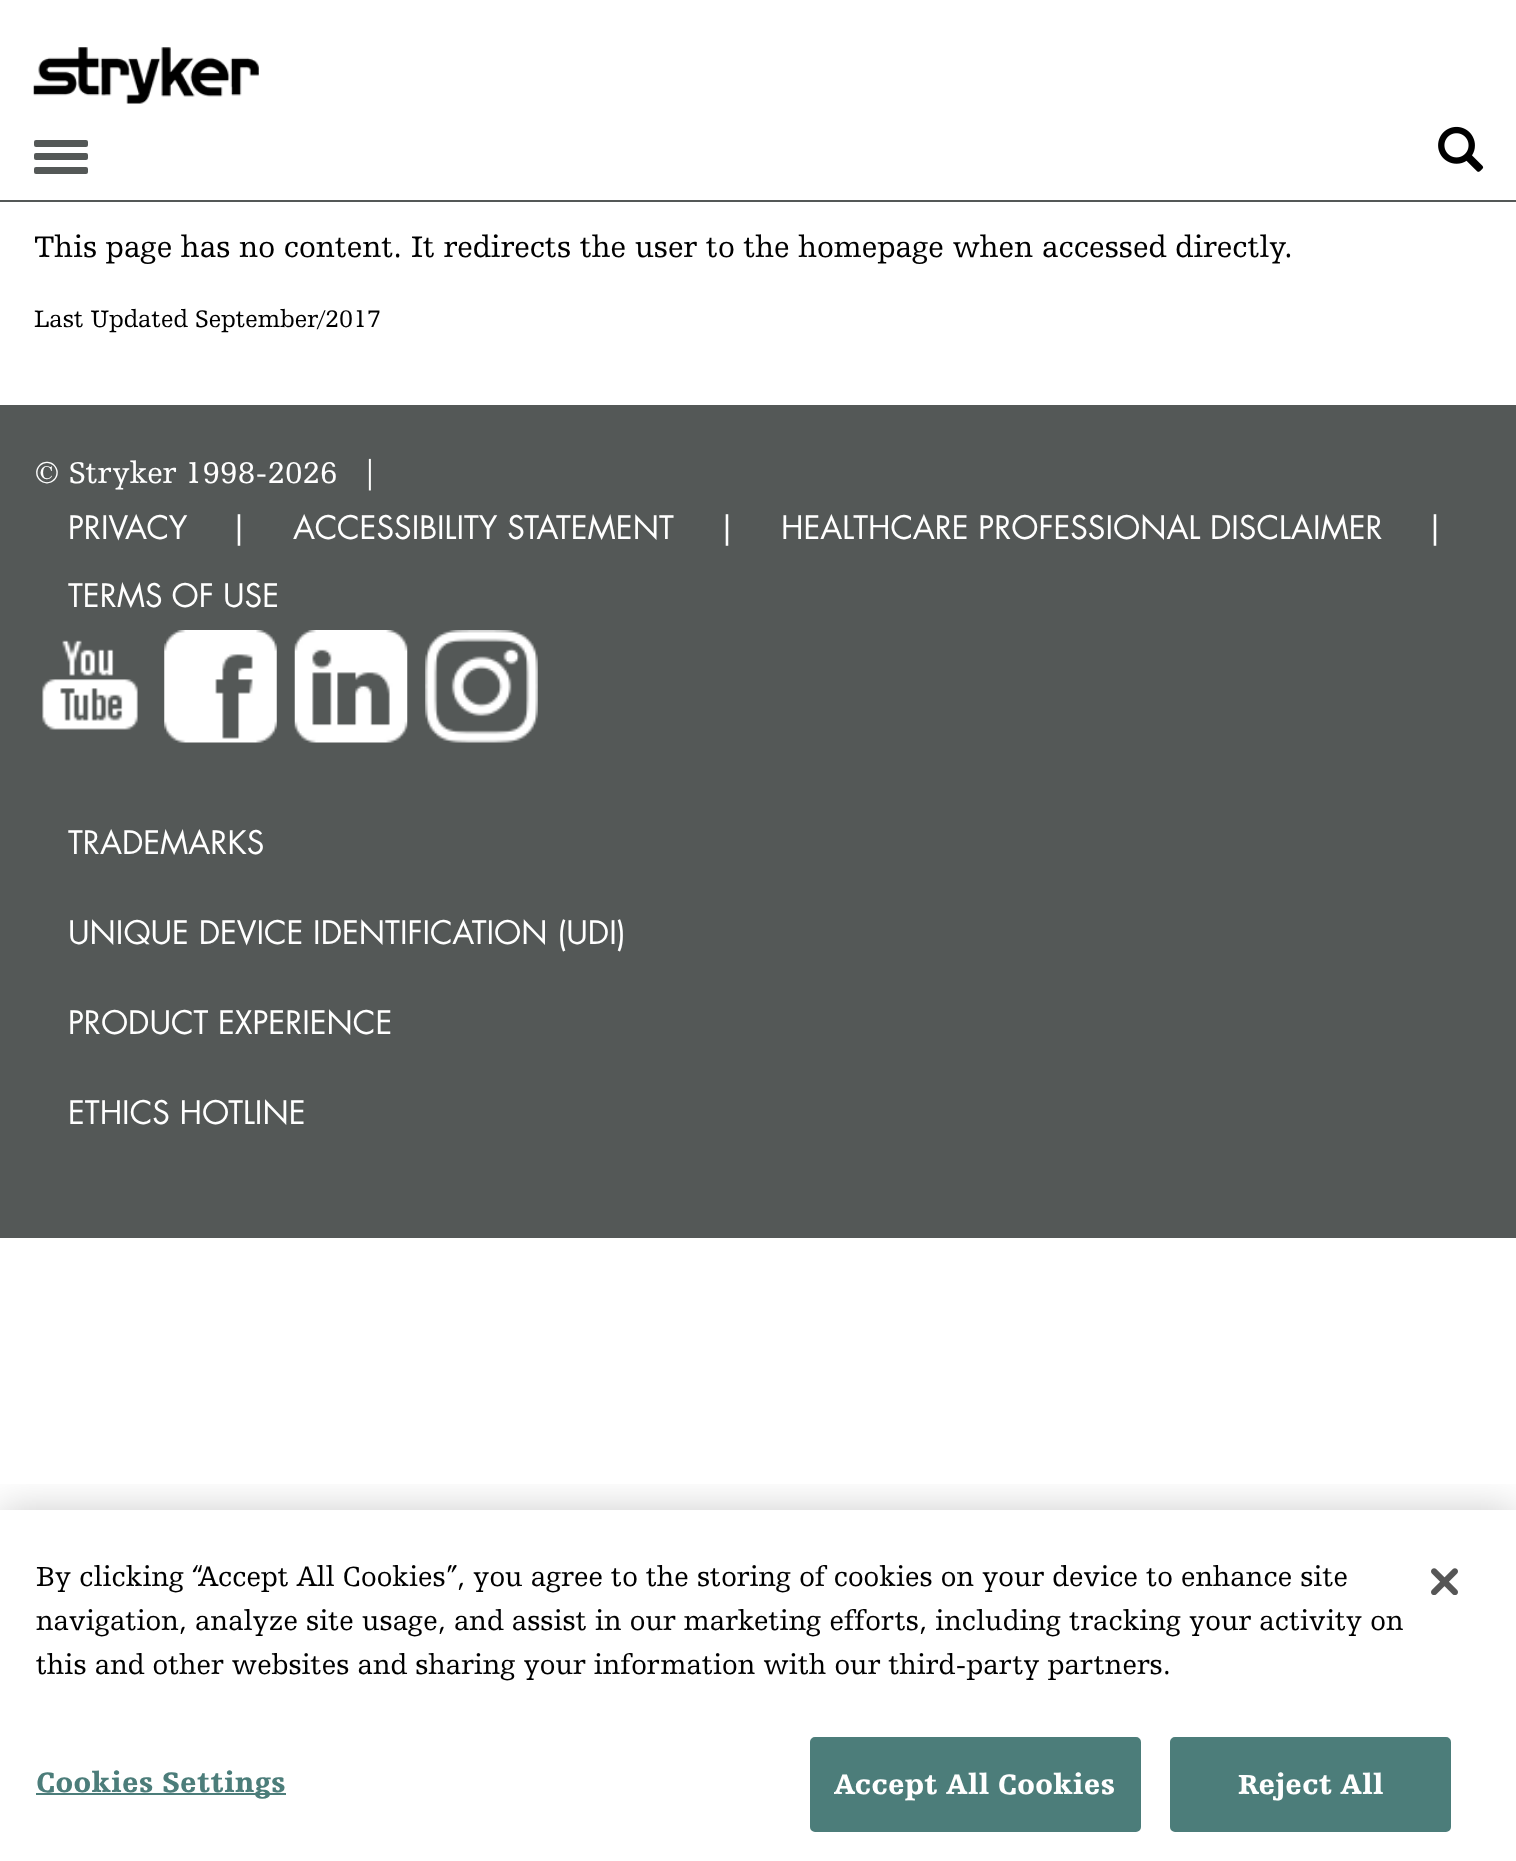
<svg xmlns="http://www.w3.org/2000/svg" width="1516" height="1861">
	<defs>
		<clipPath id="clip1"><rect x="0" y="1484" width="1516" height="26" /></clipPath>
	</defs>
	<rect width="100%" height="100%" fill="#FFFFFF" />
	<rect x="0" y="200" width="1516" height="2" fill="#545857" />
	<image x="33" y="47" width="226" height="57" href="assets/img1.png" />
	<rect x="34" y="140" width="54" height="7" rx="2" fill="#545857" />
	<rect x="34" y="153" width="54" height="7" rx="2" fill="#545857" />
	<rect x="34" y="167" width="54" height="7" rx="2" fill="#545857" />
	<image x="1438" y="126" width="46" height="46" href="assets/img2.png" />
	<text x="34" y="257" font-family="'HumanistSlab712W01'" font-size="31.5" fill="#000000">This page has no content. It redirects the user to the homepage when accessed directly.</text>
	<text x="34" y="327" font-family="'HumanistSlab712W01'" font-size="25.25" fill="#000000">Last Updated September/2017</text>
	<rect x="0" y="405" width="1516" height="833" fill="#545857" />
	<g font-family="'HumanistSlab712W01'" font-size="31.5" fill="#FFFFFF">
		<text x="34" y="483">© Stryker 1998-2026</text>
		<text x="362" y="483">|</text>
	</g>
	<g font-family="Futura" font-size="31.5" fill="#FFFFFF">
		<text x="68" y="539">PRIVACY</text>
		<text x="230" y="539">|</text>
		<text x="293" y="539">ACCESSIBILITY STATEMENT</text>
		<text x="718" y="539">|</text>
		<text x="781" y="539">HEALTHCARE PROFESSIONAL DISCLAIMER</text>
		<text x="1426" y="539">|</text>
		<text x="68" y="607">TERMS OF USE</text>
	</g>
	<image x="42" y="640" width="96" height="90" href="assets/img3.png" />
	<image x="164" y="630" width="113" height="113" href="assets/img4.png" />
	<image x="294" y="630" width="114" height="113" href="assets/img5.png" />
	<image x="425" y="630" width="113" height="113" href="assets/img6.png" />
	<g font-family="Futura" font-size="31.5" fill="#FFFFFF">
		<text x="68" y="854">TRADEMARKS</text>
		<text x="68" y="944">UNIQUE DEVICE IDENTIFICATION (UDI)</text>
		<text x="68" y="1034">PRODUCT EXPERIENCE</text>
		<text x="68" y="1124">ETHICS HOTLINE</text>
	</g>
	<g clip-path="url(#clip1)">
		<rect x="0" y="1510" width="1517" height="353" fill="#000000" fill-opacity="0.2" filter="blur(20px)" />
	</g>
	<g font-family="'HumanistSlab712W01'" font-size="29.25" fill="#000000">
		<text x="36" y="1586">By clicking “Accept All Cookies”, you agree to the storing of cookies on your device to enhance site</text>
		<text x="36" y="1630">navigation, analyze site usage, and assist in our marketing efforts, including tracking your activity on</text>
		<text x="36" y="1674">this and other websites and sharing your information with our third-party partners.</text>
	</g>
	<rect x="36" y="1793" width="250" height="2" fill="#4C7D7A" />
	<text x="36" y="1792" font-family="'HumanistSlab712W01'" font-size="29.25" font-weight="900" letter-spacing="0.25" fill="#4C7D7A">Cookies Settings</text>
	<rect x="811" y="1738" width="329" height="93" rx="4" fill="#4C7D7A" stroke="#4C7D7A" stroke-width="2" />
	<text x="834" y="1794" font-family="'HumanistSlab712W01'" font-size="29.25" font-weight="900" letter-spacing="0.25" fill="#FFFFFF">Accept All Cookies</text>
	<rect x="1171" y="1738" width="279" height="93" rx="4" fill="#4C7D7A" stroke="#4C7D7A" stroke-width="2" />
	<text x="1238" y="1794" font-family="'HumanistSlab712W01'" font-size="29.25" font-weight="900" letter-spacing="0.25" fill="#FFFFFF">Reject All</text>
	<image x="1431" y="1568" width="27" height="27" href="assets/img7.png" />
</svg>
